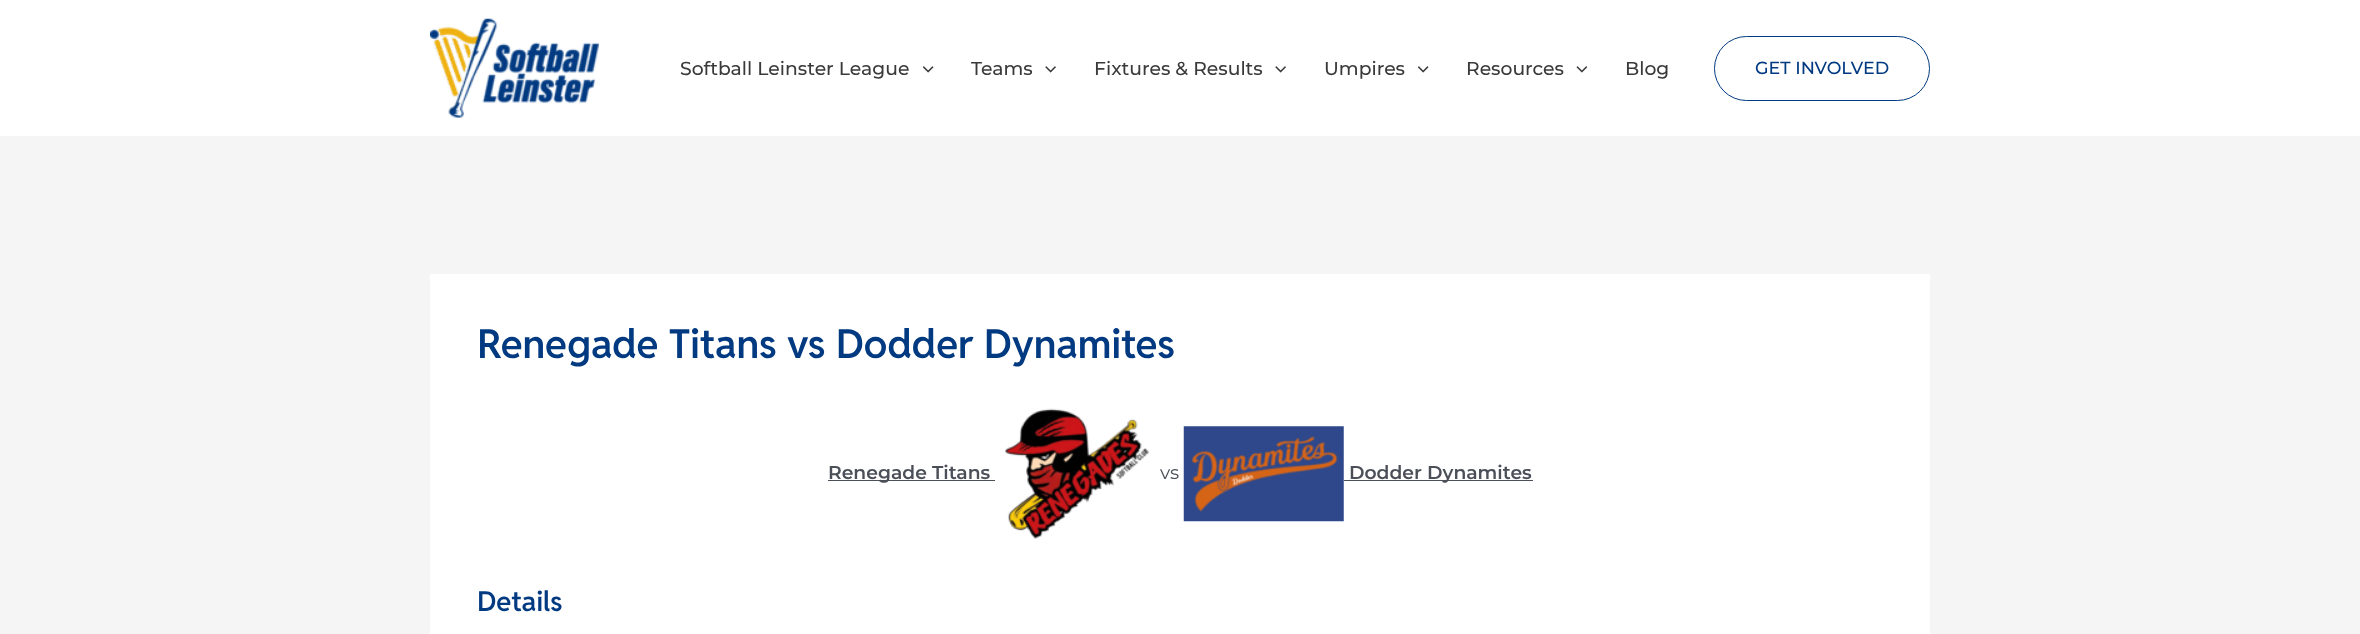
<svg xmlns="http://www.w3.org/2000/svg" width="2360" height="634">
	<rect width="100%" height="100%" fill="#F5F5F5" />
	<rect x="0" y="0" width="2360" height="136" fill="#FFFFFF" />
	<image x="430" y="18" width="169" height="100" href="assets/img1.png" />
	<text x="680" y="75" font-family="Montserrat" font-size="18.75" font-weight="500" fill="#3A3A3A">Softball Leinster League</text>
	<image x="923" y="66" width="11" height="7" href="assets/img2.png" />
	<text x="971" y="75" font-family="Montserrat" font-size="18.75" font-weight="500" fill="#3A3A3A">Teams</text>
	<image x="1045" y="66" width="11" height="7" href="assets/img3.png" />
	<text x="1094" y="75" font-family="Montserrat" font-size="18.75" font-weight="500" fill="#3A3A3A">Fixtures &amp; Results</text>
	<image x="1275" y="66" width="11" height="7" href="assets/img3.png" />
	<text x="1324" y="75" font-family="Montserrat" font-size="18.75" font-weight="500" fill="#3A3A3A">Umpires</text>
	<image x="1418" y="66" width="11" height="7" href="assets/img2.png" />
	<text x="1466" y="75" font-family="Montserrat" font-size="18.75" font-weight="500" fill="#3A3A3A">Resources</text>
	<image x="1576" y="66" width="12" height="7" href="assets/img4.png" />
	<text x="1625" y="75" font-family="Montserrat" font-size="18.75" font-weight="500" fill="#3A3A3A">Blog</text>
	<rect x="1714.5" y="36.5" width="215" height="64" rx="32" fill="none" stroke="#013A81" />
	<text x="1755" y="74" font-family="Montserrat" font-size="17.5" font-weight="500" fill="#013A81">GET INVOLVED</text>
	<rect x="430" y="274" width="1500" height="360" fill="#FFFFFF" />
	<text x="477" y="358" font-family="Reddit Sans" font-size="40" font-weight="600" fill="#013A81">Renegade Titans vs Dodder Dynamites</text>
	<rect x="828" y="480" width="167" height="1" fill="#4B4F58" />
	<text x="828" y="479" font-family="Montserrat" font-size="18.75" font-weight="600" fill="#4B4F58">Renegade Titans</text>
	<image x="1004" y="408" width="145" height="131" href="assets/img5.png" />
	<text x="1160" y="479" font-family="Montserrat" font-size="18.75" fill="#4B4F58">vs</text>
	<image x="1183" y="426" width="161" height="96" href="assets/img6.png" />
	<rect x="1344" y="480" width="189" height="1" fill="#4B4F58" />
	<text x="1349" y="479" font-family="Montserrat" font-size="18.75" font-weight="600" fill="#4B4F58">Dodder Dynamites</text>
	<text x="477" y="611" font-family="Reddit Sans" font-size="27.5" font-weight="600" fill="#013A81">Details</text>
</svg>
